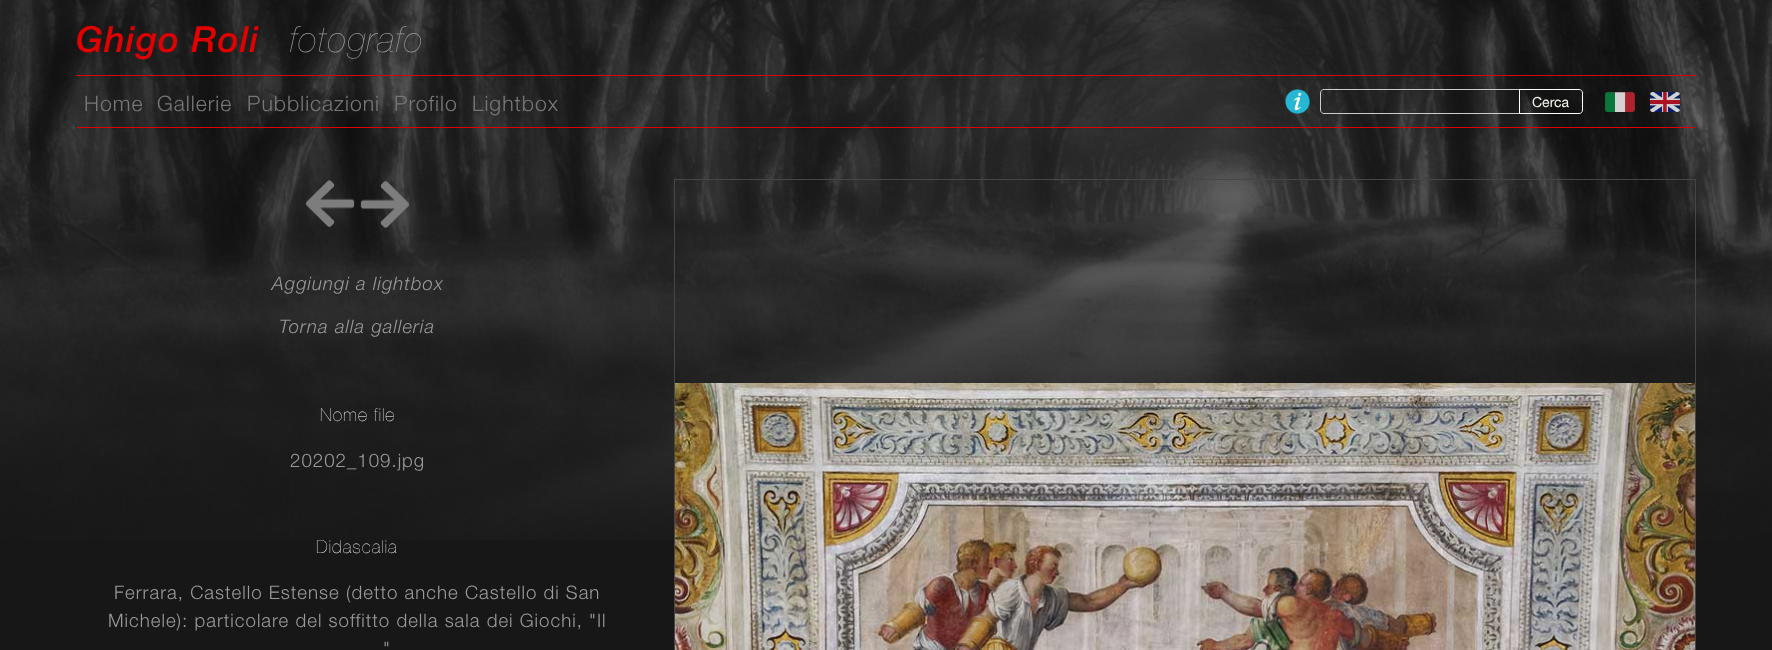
<svg xmlns="http://www.w3.org/2000/svg" width="1772" height="650">
	<rect width="100%" height="100%" fill="#171717" />
	<image x="0" y="0" width="1772" height="540" href="assets/img1.png" />
	<text x="76" y="52" font-family="Helvetica Neue" font-size="36" font-weight="500" font-style="italic" letter-spacing="1" fill="#E20101">Ghigo Roli</text>
	<text x="290" y="52" font-family="Helvetica Neue" font-size="36" font-weight="300" font-style="italic" letter-spacing="1" fill="#999999">fotografo</text>
	<rect x="76" y="75" width="1620" height="1" fill="#E20101" />
	<g font-family="Helvetica Neue" font-size="21.25" font-weight="300" letter-spacing="1" fill="#777777">
		<text x="84" y="111">Home</text>
		<text x="157" y="111">Gallerie</text>
		<text x="247" y="111">Pubblicazioni</text>
		<text x="394" y="111">Profilo</text>
		<text x="472" y="111">Lightbox</text>
	</g>
	<rect x="77" y="127" width="1618" height="1" fill="#E20101" />
	<image x="1285" y="89" width="25" height="25" href="assets/img2.png" />
	<path d="M1324 91H1519V90H1324C1322 90 1321 92 1321 94C1321 92 1322 91 1324 91Z" fill="#000000" fill-opacity="0.07" />
	<path d="M1324 89.5H1519.5V113.5H1324C1322 113.5 1320.5 112 1320.5 110V93C1320.5 91 1322 89.5 1324 89.5Z" fill="none" stroke="#CCCCCC" />
	<path d="M1519.5 89.5H1579C1581 89.5 1582.5 91 1582.5 93V110C1582.5 112 1581 113.5 1579 113.5H1519.5Z" fill="none" stroke="#FFFFFF" />
	<text x="1532" y="107" font-family="Helvetica Neue" font-size="14" fill="#F6F7EF">Cerca</text>
	<image x="1605" y="92" width="30" height="20" href="assets/img3.png" />
	<image x="1650" y="92" width="30" height="20" href="assets/img4.png" />
	<image x="305" y="180" width="50" height="48" href="assets/img5.png" />
	<image x="360" y="181" width="50" height="47" href="assets/img6.png" />
	<g font-family="'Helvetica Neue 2'" font-size="18.7" font-weight="300" font-style="italic" letter-spacing="1" fill="#999999">
		<text x="272" y="290">Aggiungi a lightbox</text>
		<text x="279" y="333">Torna alla galleria</text>
	</g>
	<text x="320" y="421" font-family="'Helvetica Neue 2'" font-size="18" font-weight="300" letter-spacing="1" fill="#FFFFFF">Nome file</text>
	<text x="290" y="467" font-family="Helvetica Neue" font-size="18.7" font-weight="300" letter-spacing="1" fill="#999999">20202_109.jpg</text>
	<text x="316" y="553" font-family="'Helvetica Neue 2'" font-size="18" font-weight="300" letter-spacing="1" fill="#FFFFFF">Didascalia</text>
	<g font-family="Helvetica Neue" font-size="18.7" font-weight="300" letter-spacing="1" fill="#999999">
		<text x="114" y="599">Ferrara, Castello Estense (detto anche Castello di San</text>
		<text x="108" y="627">Michele): particolare del soffitto della sala dei Giochi, "Il</text>
		<text x="383" y="655">"</text>
	</g>
	<rect x="674.5" y="179.5" width="1021" height="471" fill="none" stroke="#464646" />
	<image x="675" y="383" width="1020" height="267" href="assets/img7.png" />
</svg>
